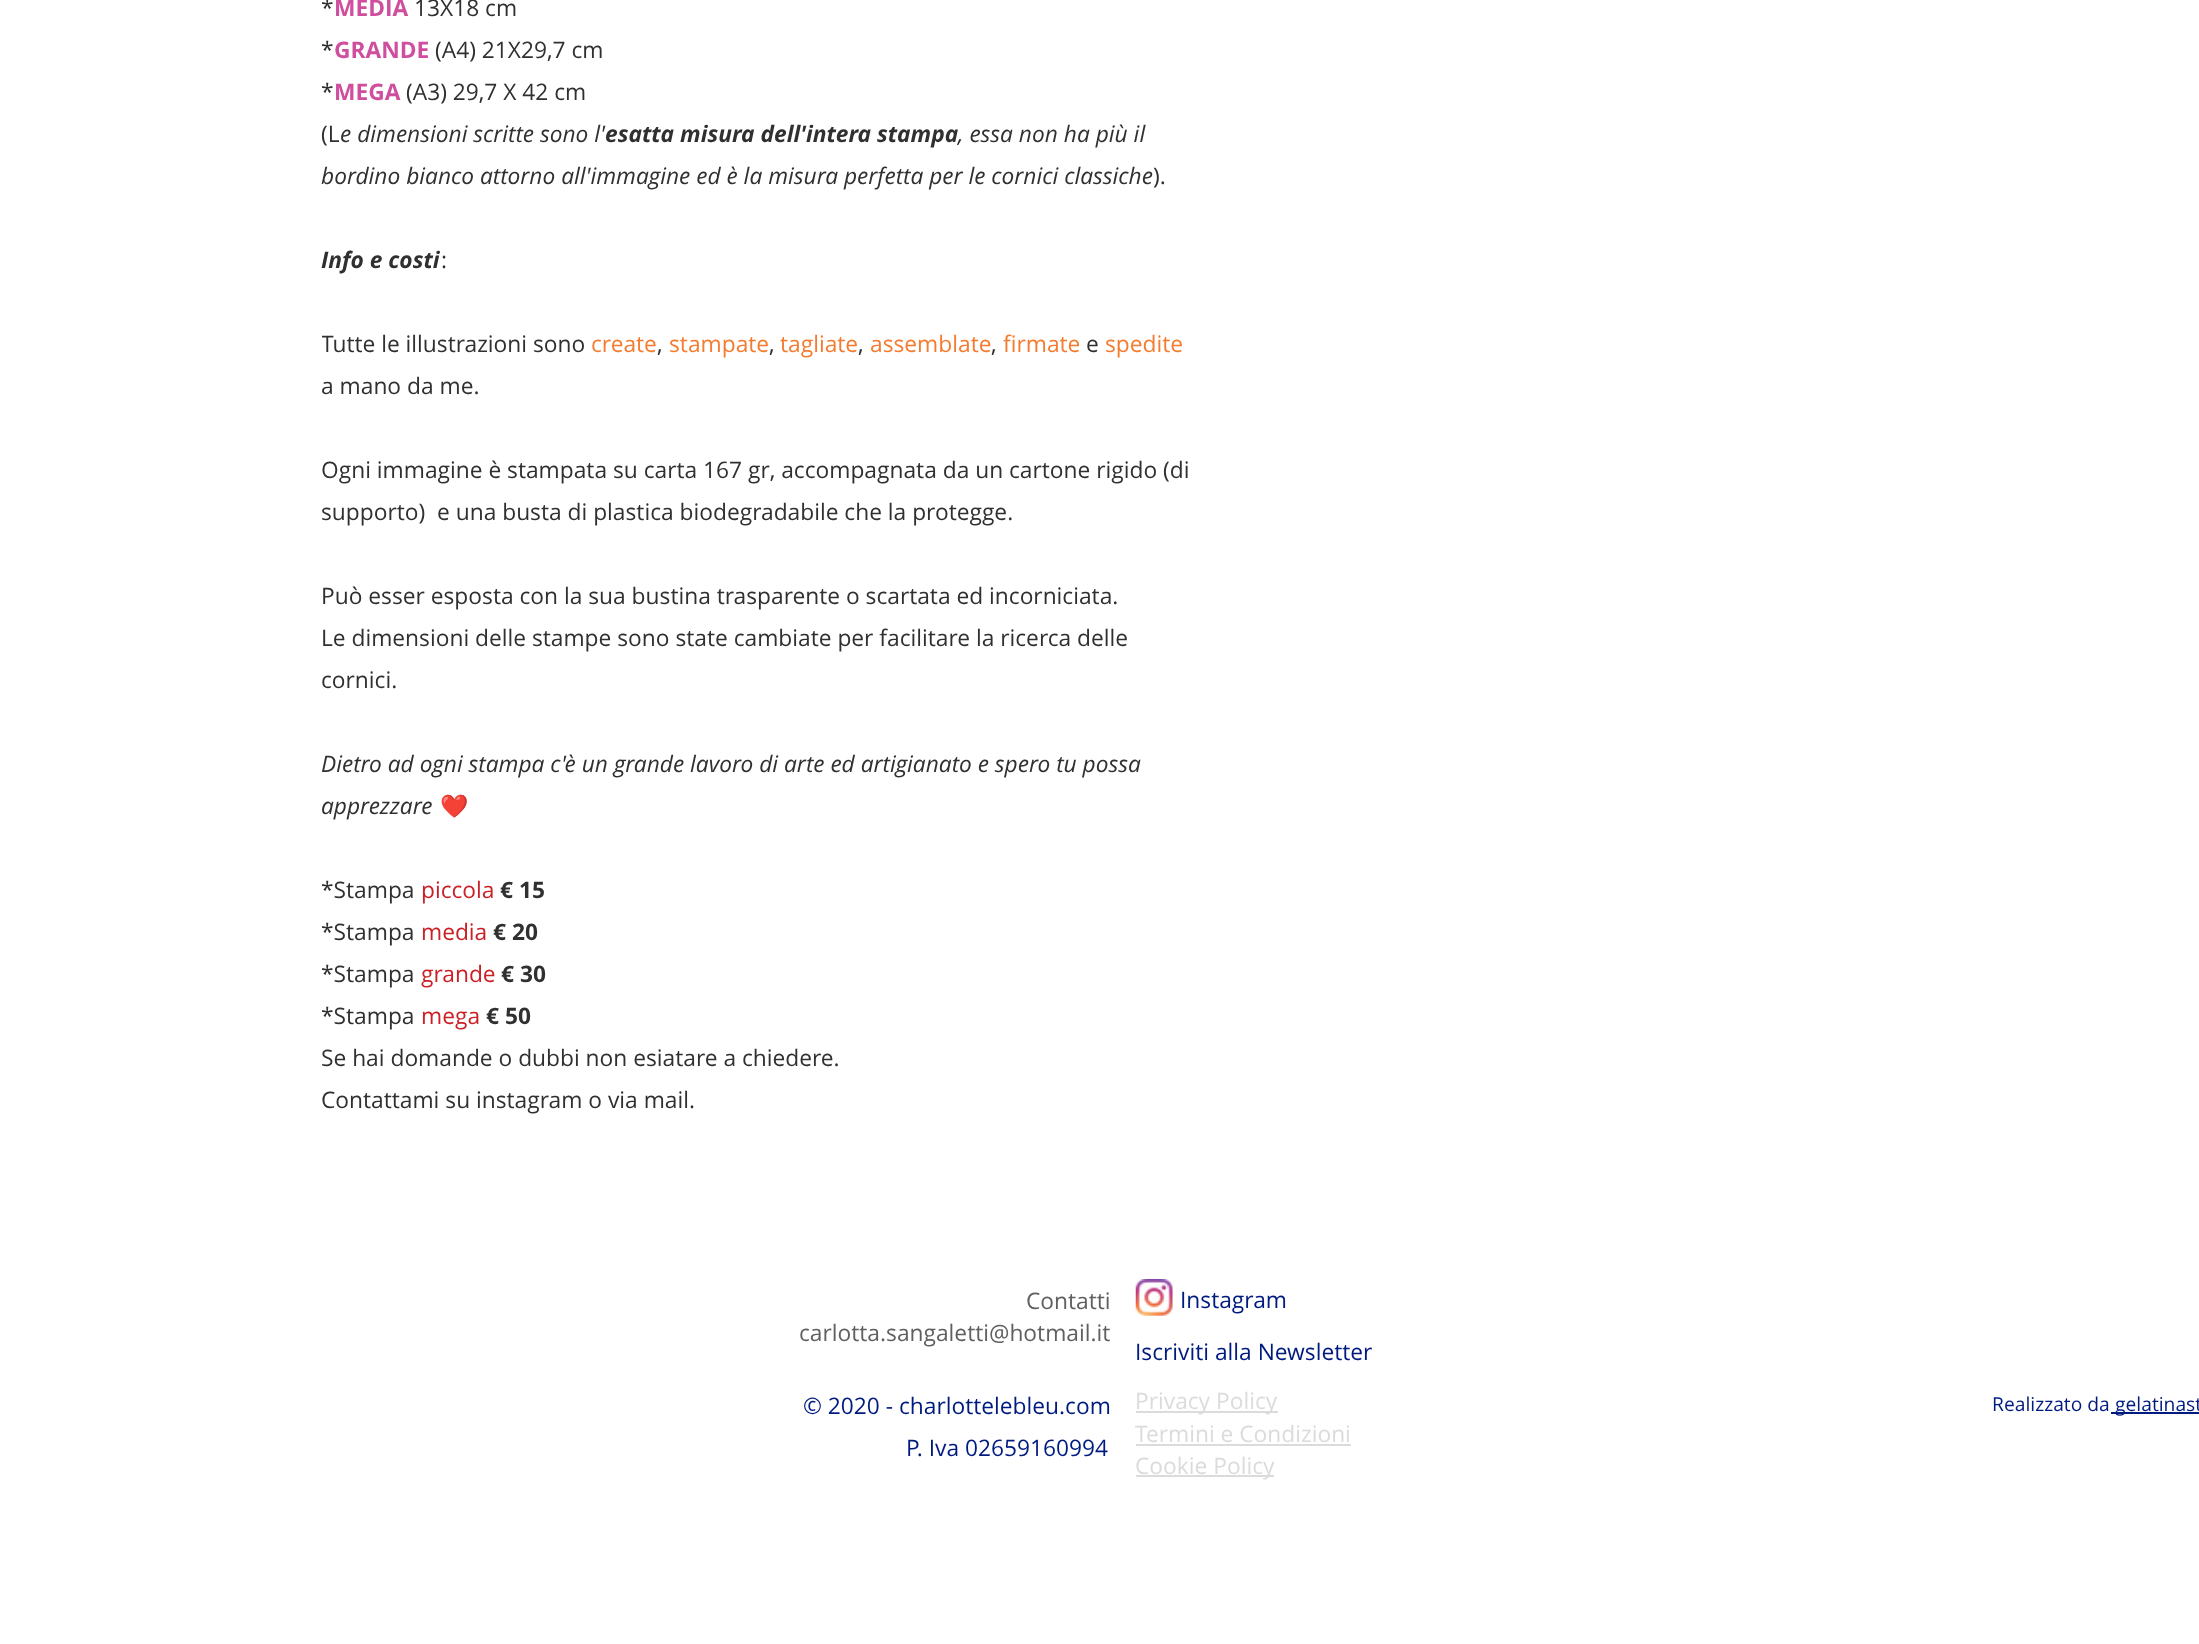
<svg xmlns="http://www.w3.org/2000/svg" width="2199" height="1644">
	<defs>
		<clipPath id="clip1"><rect x="322" y="0" width="875" height="1120" /></clipPath>
	</defs>
	<rect width="100%" height="100%" fill="#FFFFFF" />
	<text x="321" y="16" font-family="Open Sans" font-size="22.75" fill="#303030">*</text>
	<text x="334" y="16" font-family="Open Sans" font-size="22.75" font-weight="700" fill="#CF4E9E">MEDIA</text>
	<g font-family="Open Sans" font-size="22.75" fill="#303030">
		<text x="414" y="16">13X18 cm</text>
		<text x="321" y="58">*</text>
	</g>
	<text x="334" y="58" font-family="Open Sans" font-size="22.75" font-weight="700" fill="#CF4E9E">GRANDE</text>
	<g font-family="Open Sans" font-size="22.75" fill="#303030">
		<text x="435" y="58">(A4) 21X29,7 cm</text>
		<text x="321" y="100">*</text>
	</g>
	<text x="334" y="100" font-family="Open Sans" font-size="22.75" font-weight="700" fill="#CF4E9E">MEGA</text>
	<g font-family="Open Sans" font-size="22.75" fill="#303030">
		<text x="406" y="100">(A3) 29,7 X 42 cm</text>
		<text x="321" y="142">(L</text>
	</g>
	<text x="340" y="142" font-family="Open Sans" font-size="22.75" font-style="italic" fill="#303030">e dimensioni scritte sono l'</text>
	<text x="605" y="142" font-family="Open Sans" font-size="22.75" font-weight="700" font-style="italic" fill="#303030">esatta misura dell'intera stampa</text>
	<g font-family="Open Sans" font-size="22.75" font-style="italic" fill="#303030">
		<text x="958" y="142">, essa non ha più il</text>
		<text x="321" y="184">bordino bianco attorno all'immagine ed è la misura perfetta per le cornici classiche</text>
	</g>
	<text x="1153" y="184" font-family="Open Sans" font-size="22.75" fill="#303030">).</text>
	<text x="321" y="268" font-family="Open Sans" font-size="22.75" font-weight="700" font-style="italic" fill="#303030">Info e costi</text>
	<text x="441" y="268" font-family="Open Sans" font-size="22.75" fill="#303030">:</text>
	<g clip-path="url(#clip1)">
		<text x="321" y="352" font-family="Open Sans" font-size="22.75" fill="#303030">Tutte le illustrazioni sono</text>
	</g>
	<text x="591" y="352" font-family="Open Sans" font-size="22.75" fill="#F57B2F">create</text>
	<text x="657" y="352" font-family="Open Sans" font-size="22.75" fill="#303030">,</text>
	<text x="669" y="352" font-family="Open Sans" font-size="22.75" fill="#F57B2F">stampate</text>
	<text x="769" y="352" font-family="Open Sans" font-size="22.75" fill="#303030">,</text>
	<text x="780" y="352" font-family="Open Sans" font-size="22.75" fill="#F57B2F">tagliate</text>
	<text x="858" y="352" font-family="Open Sans" font-size="22.75" fill="#303030">,</text>
	<text x="870" y="352" font-family="Open Sans" font-size="22.75" fill="#F57B2F">assemblate</text>
	<text x="991" y="352" font-family="Open Sans" font-size="22.75" fill="#303030">,</text>
	<text x="1003" y="352" font-family="Open Sans" font-size="22.75" fill="#F57B2F">firmate</text>
	<text x="1086" y="352" font-family="Open Sans" font-size="22.75" fill="#303030">e</text>
	<text x="1105" y="352" font-family="Open Sans" font-size="22.75" fill="#F57B2F">spedite</text>
	<g font-family="Open Sans" font-size="22.75" fill="#303030">
		<text x="321" y="394">a mano da me.</text>
		<text x="321" y="478">Ogni immagine è stampata su carta 167 gr, accompagnata da un cartone rigido (di</text>
		<text x="321" y="520" xml:space="preserve">supporto)  e una busta di plastica biodegradabile che la protegge.</text>
		<text x="321" y="604">Può esser esposta con la sua bustina trasparente o scartata ed incorniciata.</text>
		<text x="321" y="646">Le dimensioni delle stampe sono state cambiate per facilitare la ricerca delle</text>
		<text x="321" y="688">cornici.</text>
	</g>
	<g font-family="Open Sans" font-size="22.75" font-style="italic" fill="#303030">
		<text x="321" y="772">Dietro ad ogni stampa c'è un grande lavoro di arte ed artigianato e spero tu possa</text>
		<text x="321" y="814">apprezzare</text>
	</g>
	<text x="440" y="814" font-family="Noto Color Emoji" font-size="22.75" fill="#303030">❤️</text>
	<text x="321" y="898" font-family="Open Sans" font-size="22.75" fill="#303030">*Stampa</text>
	<text x="421" y="898" font-family="Open Sans" font-size="22.75" fill="#CB2026">piccola</text>
	<text x="500" y="898" font-family="Open Sans" font-size="22.75" font-weight="700" fill="#303030">€ 15</text>
	<text x="321" y="940" font-family="Open Sans" font-size="22.75" fill="#303030">*Stampa</text>
	<text x="421" y="940" font-family="Open Sans" font-size="22.75" fill="#CB2026">media</text>
	<text x="493" y="940" font-family="Open Sans" font-size="22.75" font-weight="700" fill="#303030">€ 20</text>
	<text x="321" y="982" font-family="Open Sans" font-size="22.75" fill="#303030">*Stampa</text>
	<text x="421" y="982" font-family="Open Sans" font-size="22.75" fill="#CB2026">grande</text>
	<text x="501" y="982" font-family="Open Sans" font-size="22.75" font-weight="700" fill="#303030">€ 30</text>
	<text x="321" y="1024" font-family="Open Sans" font-size="22.75" fill="#303030">*Stampa</text>
	<text x="421" y="1024" font-family="Open Sans" font-size="22.75" fill="#CB2026">mega</text>
	<text x="486" y="1024" font-family="Open Sans" font-size="22.75" font-weight="700" fill="#303030">€ 50</text>
	<g font-family="Open Sans" font-size="22.75" fill="#303030">
		<text x="321" y="1066">Se hai domande o dubbi non esiatare a chiedere.</text>
		<text x="321" y="1108">Contattami su instagram o via mail.</text>
	</g>
	<g font-family="Open Sans" font-size="22.75" fill="#606060">
		<text x="1026" y="1309">Contatti</text>
		<text x="799" y="1341">carlotta.sangaletti@hotmail.it</text>
	</g>
	<image x="1135" y="1279" width="38" height="37" href="assets/img1.png" />
	<g font-family="Open Sans" font-size="22.75" fill="#001B80">
		<text x="1180" y="1308">Instagram</text>
		<text x="1135" y="1360">Iscriviti alla Newsletter</text>
		<text x="803" y="1414">© 2020 - charlottelebleu.com</text>
	</g>
	<rect x="1136" y="1411" width="142" height="2" fill="#DBDBDB" />
	<text x="1135" y="1409" font-family="Open Sans" font-size="22.75" fill="#DBDBDB">Privacy Policy</text>
	<text x="1992" y="1411" font-family="Open Sans" font-size="19.25" fill="#001B80">Realizzato da</text>
	<rect x="2111" y="1412" width="88" height="2" fill="#001B80" />
	<text x="2115" y="1411" font-family="Open Sans" font-size="19.25" fill="#001B80">gelatinast</text>
	<text x="1135" y="1442" font-family="Open Sans" font-size="22.75" fill="#DBDBDB">Termini e Condizioni</text>
	<rect x="1136" y="1444" width="215" height="2" fill="#DBDBDB" />
	<text x="906" y="1456" font-family="Open Sans" font-size="22.75" fill="#001B80">P. Iva 02659160994</text>
	<rect x="1136" y="1475" width="138" height="2" fill="#DBDBDB" />
	<text x="1135" y="1474" font-family="Open Sans" font-size="22.75" fill="#DBDBDB">Cookie Policy</text>
</svg>
